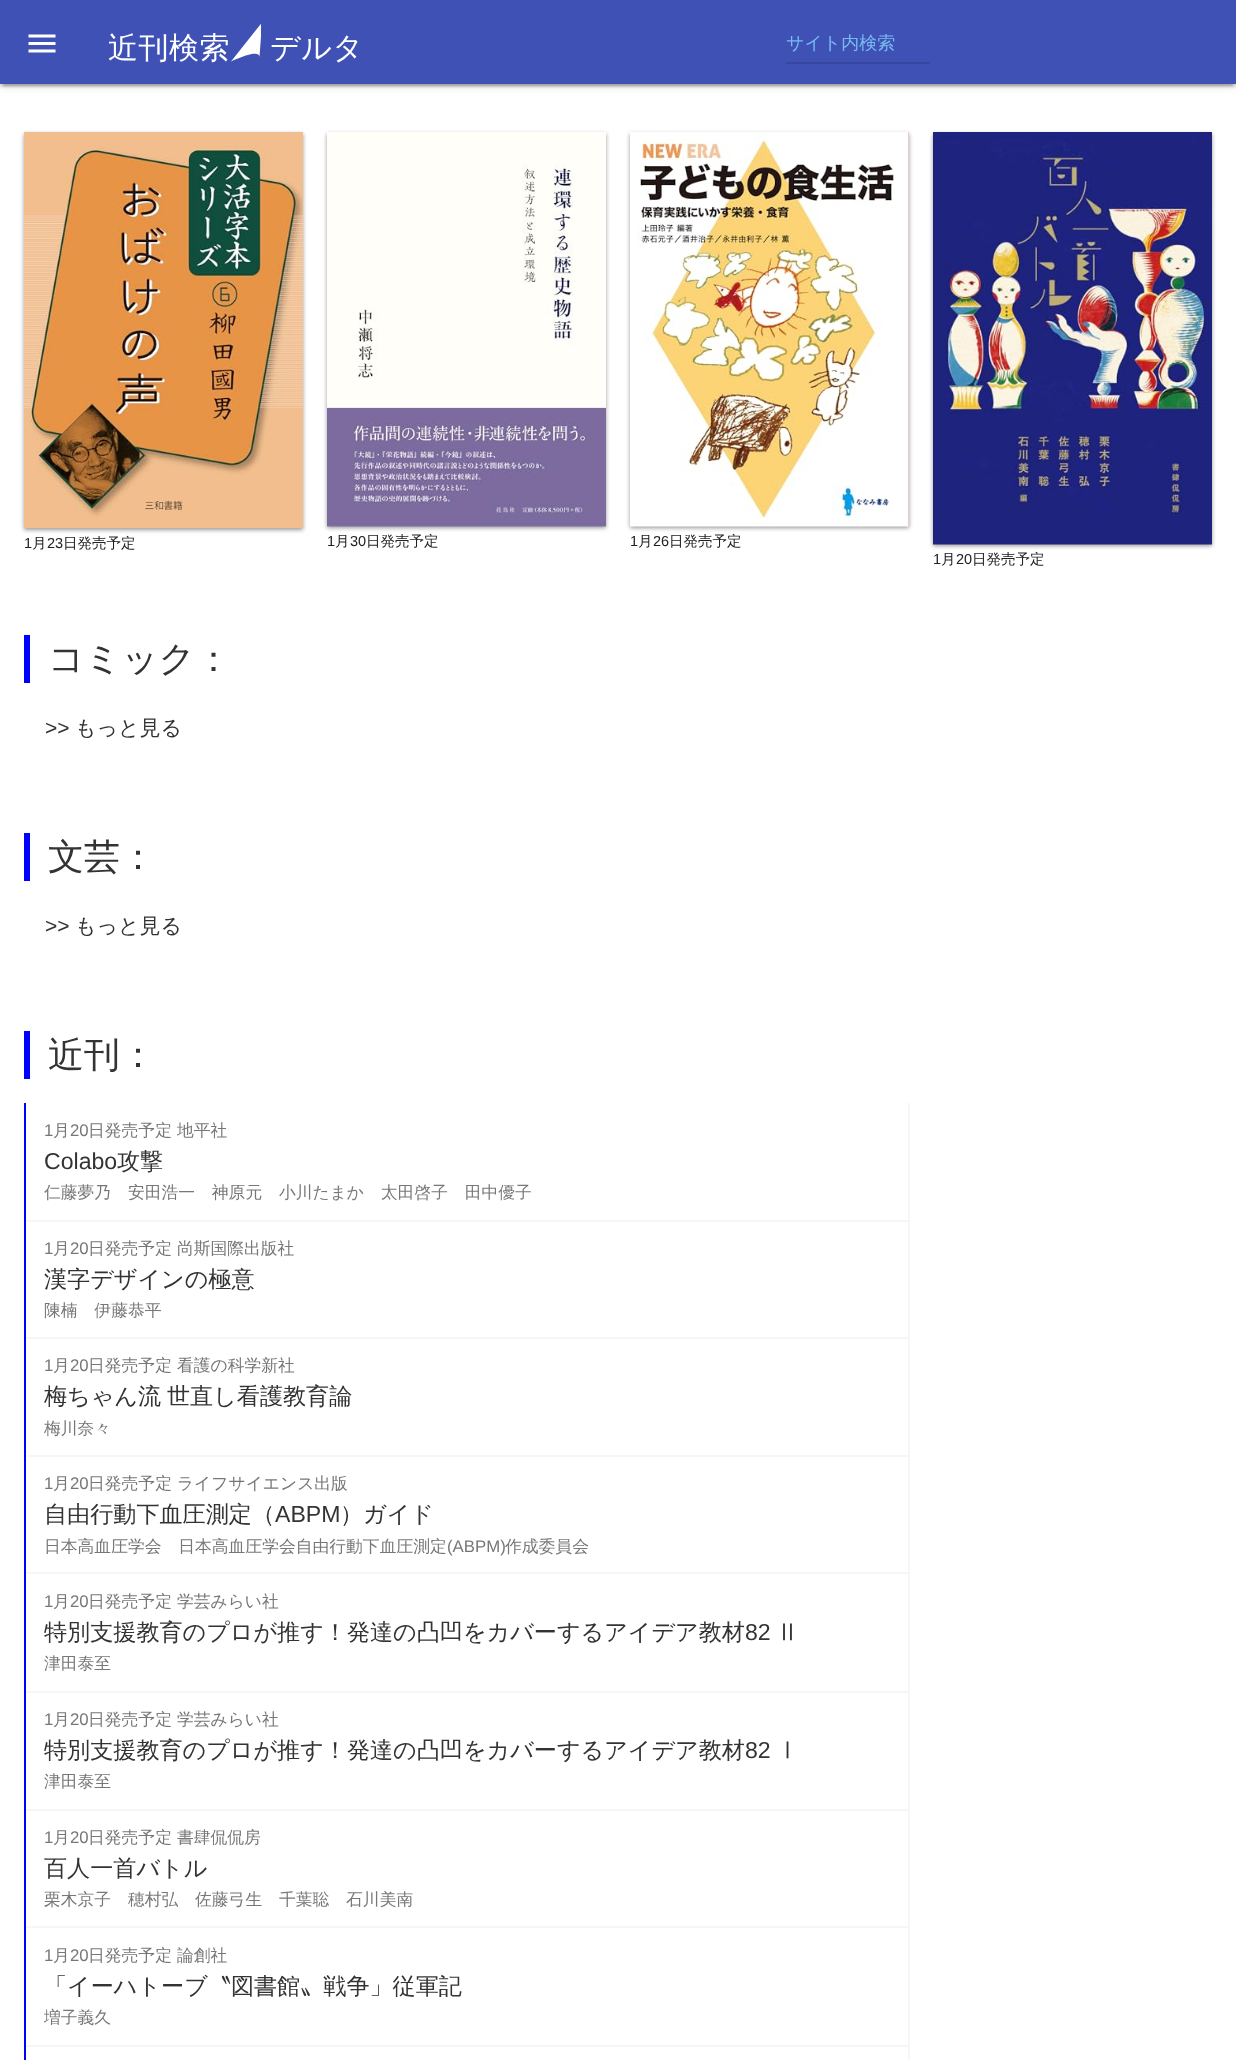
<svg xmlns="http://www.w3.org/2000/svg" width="1236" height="2060">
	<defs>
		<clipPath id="clip1"><rect x="231" y="23" width="30" height="39" /></clipPath>
	</defs>
	<rect width="100%" height="100%" fill="#FFFFFF" />
	<rect x="0" y="2" width="1236" height="84" fill="#000000" fill-opacity="0.12" filter="blur(4px)" />
	<rect x="3" y="8" width="1230" height="78" fill="#000000" fill-opacity="0.2" filter="blur(1px)" />
	<rect x="0" y="3" width="1236" height="84" fill="#000000" fill-opacity="0.14" filter="blur(1.5px)" />
	<rect x="0" y="0" width="1236" height="84" fill="#3F51B5" />
	<image x="28" y="34" width="28" height="19" href="assets/img1.png" />
	<text x="108" y="58" font-family="WenQuanYi Zen Hei" font-size="30" font-weight="500" letter-spacing="0.5" fill="#FFFFFF">近刊検索</text>
	<g clip-path="url(#clip1)">
		<path d="M262 22.5L231 61.5C231 61.5 259.5 47.5 259.5 57Z" fill="#FFFFFF" />
	</g>
	<text x="270" y="58" font-family="WenQuanYi Zen Hei" font-size="30" font-weight="500" letter-spacing="0.5" fill="#FFFFFF">デルタ</text>
	<rect x="786" y="62" width="144" height="2" fill="#37479F" />
	<text x="786" y="49" font-family="WenQuanYi Zen Hei" font-size="18" font-weight="500" fill="#77BBEE">サイト内検索</text>
	<rect x="24" y="134" width="279" height="396" fill="#000000" fill-opacity="0.4" filter="blur(2px)" />
	<image x="24" y="132" width="279" height="396" href="assets/img2.png" />
	<text x="24" y="548" font-family="Liberation Sans" font-size="14.5" fill="#212121">1</text>
	<text x="32" y="548" font-family="WenQuanYi Zen Hei" font-size="14.5" font-weight="500" fill="#212121">月</text>
	<text x="47" y="548" font-family="Liberation Sans" font-size="14.5" fill="#212121">23</text>
	<text x="63" y="548" font-family="WenQuanYi Zen Hei" font-size="14.5" font-weight="500" fill="#212121">日発売予定</text>
	<rect x="327" y="134" width="279" height="394" fill="#000000" fill-opacity="0.4" filter="blur(2px)" />
	<image x="327" y="132" width="279" height="395" href="assets/img3.png" />
	<text x="327" y="546" font-family="Liberation Sans" font-size="14.5" fill="#212121">1</text>
	<text x="335" y="546" font-family="WenQuanYi Zen Hei" font-size="14.5" font-weight="500" fill="#212121">月</text>
	<text x="350" y="546" font-family="Liberation Sans" font-size="14.5" fill="#212121">30</text>
	<text x="366" y="546" font-family="WenQuanYi Zen Hei" font-size="14.5" font-weight="500" fill="#212121">日発売予定</text>
	<rect x="630" y="134" width="279" height="394" fill="#000000" fill-opacity="0.4" filter="blur(2px)" />
	<image x="630" y="132" width="279" height="395" href="assets/img4.png" />
	<text x="630" y="546" font-family="Liberation Sans" font-size="14.5" fill="#212121">1</text>
	<text x="638" y="546" font-family="WenQuanYi Zen Hei" font-size="14.5" font-weight="500" fill="#212121">月</text>
	<text x="653" y="546" font-family="Liberation Sans" font-size="14.5" fill="#212121">26</text>
	<text x="669" y="546" font-family="WenQuanYi Zen Hei" font-size="14.5" font-weight="500" fill="#212121">日発売予定</text>
	<rect x="933" y="134" width="279" height="412" fill="#000000" fill-opacity="0.4" filter="blur(2px)" />
	<image x="933" y="132" width="279" height="413" href="assets/img5.png" />
	<text x="933" y="564" font-family="Liberation Sans" font-size="14.5" fill="#212121">1</text>
	<text x="941" y="564" font-family="WenQuanYi Zen Hei" font-size="14.5" font-weight="500" fill="#212121">月</text>
	<text x="956" y="564" font-family="Liberation Sans" font-size="14.5" fill="#212121">20</text>
	<text x="972" y="564" font-family="WenQuanYi Zen Hei" font-size="14.5" font-weight="500" fill="#212121">日発売予定</text>
	<rect x="24" y="635" width="6" height="48" fill="#0000FF" />
	<text x="48" y="671" font-family="WenQuanYi Zen Hei" font-size="36" font-weight="500" fill="#333333">コミック：</text>
	<text x="45" y="735" font-family="Liberation Sans" font-size="21" fill="#333333">&gt;&gt;</text>
	<text x="75" y="735" font-family="WenQuanYi Zen Hei" font-size="21" font-weight="500" fill="#333333">もっと見る</text>
	<rect x="24" y="833" width="6" height="48" fill="#0000FF" />
	<text x="48" y="869" font-family="WenQuanYi Zen Hei" font-size="36" font-weight="500" fill="#333333">文芸：</text>
	<text x="45" y="933" font-family="Liberation Sans" font-size="21" fill="#333333">&gt;&gt;</text>
	<text x="75" y="933" font-family="WenQuanYi Zen Hei" font-size="21" font-weight="500" fill="#333333">もっと見る</text>
	<rect x="24" y="1031" width="6" height="48" fill="#0000FF" />
	<text x="48" y="1067" font-family="WenQuanYi Zen Hei" font-size="36" font-weight="500" fill="#333333">近刊：</text>
	<rect x="908" y="1103" width="2" height="118" fill="#F6F6F6" />
	<rect x="24" y="1220" width="885" height="2" fill="#F6F6F6" />
	<rect x="24" y="1103" width="2" height="118" fill="#0000FF" />
	<text x="44" y="1136" font-family="Liberation Sans" font-size="16.8" fill="#777777">1</text>
	<text x="53" y="1136" font-family="WenQuanYi Zen Hei" font-size="16.8" font-weight="500" fill="#777777">月</text>
	<text x="70" y="1136" font-family="Liberation Sans" font-size="16.8" fill="#777777">20</text>
	<text x="88" y="1136" font-family="WenQuanYi Zen Hei" font-size="16.8" font-weight="500" fill="#777777">日発売予定 地平社</text>
	<text x="44" y="1169" font-family="Liberation Sans" font-size="23.1" fill="#333333">Colabo</text>
	<text x="117" y="1169" font-family="WenQuanYi Zen Hei" font-size="23.1" font-weight="500" fill="#333333">攻撃</text>
	<text x="44" y="1198" font-family="WenQuanYi Zen Hei" font-size="16.8" font-weight="500" fill="#777777">仁藤夢乃　安田浩一　神原元　小川たまか　太田啓子　田中優子</text>
	<rect x="908" y="1221" width="2" height="117" fill="#F6F6F6" />
	<rect x="24" y="1337" width="885" height="2" fill="#F6F6F6" />
	<rect x="24" y="1221" width="2" height="117" fill="#0000FF" />
	<text x="44" y="1254" font-family="Liberation Sans" font-size="16.8" fill="#777777">1</text>
	<text x="53" y="1254" font-family="WenQuanYi Zen Hei" font-size="16.8" font-weight="500" fill="#777777">月</text>
	<text x="70" y="1254" font-family="Liberation Sans" font-size="16.8" fill="#777777">20</text>
	<text x="88" y="1254" font-family="WenQuanYi Zen Hei" font-size="16.8" font-weight="500" fill="#777777">日発売予定 尚斯国際出版社</text>
	<text x="44" y="1287" font-family="WenQuanYi Zen Hei" font-size="23.1" font-weight="500" fill="#333333">漢字デザインの極意</text>
	<text x="44" y="1316" font-family="WenQuanYi Zen Hei" font-size="16.8" font-weight="500" fill="#777777">陳楠　伊藤恭平</text>
	<rect x="908" y="1338" width="2" height="354" fill="#F6F6F6" />
	<rect x="24" y="1455" width="885" height="2" fill="#F6F6F6" />
	<rect x="24" y="1338" width="2" height="119" fill="#0000FF" />
	<text x="44" y="1371" font-family="Liberation Sans" font-size="16.8" fill="#777777">1</text>
	<text x="53" y="1371" font-family="WenQuanYi Zen Hei" font-size="16.8" font-weight="500" fill="#777777">月</text>
	<text x="70" y="1371" font-family="Liberation Sans" font-size="16.8" fill="#777777">20</text>
	<text x="88" y="1371" font-family="WenQuanYi Zen Hei" font-size="16.8" font-weight="500" fill="#777777">日発売予定 看護の科学新社</text>
	<text x="44" y="1404" word-spacing="-1" font-family="WenQuanYi Zen Hei" font-size="23.1" font-weight="500" fill="#333333">梅ちゃん流 世直し看護教育論</text>
	<text x="44" y="1434" font-family="WenQuanYi Zen Hei" font-size="16.8" font-weight="500" fill="#777777">梅川奈々</text>
	<rect x="24" y="1572" width="885" height="2" fill="#F6F6F6" />
	<rect x="24" y="1457" width="2" height="117" fill="#0000FF" />
	<text x="44" y="1489" font-family="Liberation Sans" font-size="16.8" fill="#777777">1</text>
	<text x="53" y="1489" font-family="WenQuanYi Zen Hei" font-size="16.8" font-weight="500" fill="#777777">月</text>
	<text x="70" y="1489" font-family="Liberation Sans" font-size="16.8" fill="#777777">20</text>
	<text x="88" y="1489" font-family="WenQuanYi Zen Hei" font-size="16.8" font-weight="500" fill="#777777">日発売予定 ライフサイエンス出版</text>
	<text x="44" y="1522" font-family="WenQuanYi Zen Hei" font-size="23.1" font-weight="500" fill="#333333">自由行動下血圧測定（</text>
	<text x="275" y="1522" font-family="Liberation Sans" font-size="23.1" fill="#333333">ABPM</text>
	<text x="340" y="1522" font-family="WenQuanYi Zen Hei" font-size="23.1" font-weight="500" fill="#333333">）ガイド</text>
	<text x="44" y="1552" font-family="WenQuanYi Zen Hei" font-size="16.8" font-weight="500" fill="#777777">日本高血圧学会　日本高血圧学会自由行動下血圧測定</text>
	<text x="447" y="1552" font-family="Liberation Sans" font-size="16.8" fill="#777777">(ABPM)</text>
	<text x="505" y="1552" font-family="WenQuanYi Zen Hei" font-size="16.8" font-weight="500" fill="#777777">作成委員会</text>
	<rect x="24" y="1691" width="885" height="2" fill="#F6F6F6" />
	<rect x="24" y="1574" width="2" height="118" fill="#0000FF" />
	<text x="44" y="1607" font-family="Liberation Sans" font-size="16.8" fill="#777777">1</text>
	<text x="53" y="1607" font-family="WenQuanYi Zen Hei" font-size="16.8" font-weight="500" fill="#777777">月</text>
	<text x="70" y="1607" font-family="Liberation Sans" font-size="16.8" fill="#777777">20</text>
	<text x="88" y="1607" font-family="WenQuanYi Zen Hei" font-size="16.8" font-weight="500" fill="#777777">日発売予定 学芸みらい社</text>
	<text x="44" y="1640" font-family="WenQuanYi Zen Hei" font-size="23.1" font-weight="500" fill="#333333">特別支援教育のプロが推す！発達の凸凹をカバーするアイデア教材</text>
	<text x="745" y="1640" font-family="Liberation Sans" font-size="23.1" fill="#333333">82</text>
	<text x="776" y="1640" font-family="WenQuanYi Zen Hei" font-size="23.1" font-weight="500" fill="#333333">Ⅱ</text>
	<text x="44" y="1669" font-family="WenQuanYi Zen Hei" font-size="16.8" font-weight="500" fill="#777777">津田泰至</text>
	<rect x="908" y="1692" width="2" height="354" fill="#F6F6F6" />
	<rect x="24" y="1809" width="885" height="2" fill="#F6F6F6" />
	<rect x="24" y="1692" width="2" height="119" fill="#0000FF" />
	<text x="44" y="1725" font-family="Liberation Sans" font-size="16.8" fill="#777777">1</text>
	<text x="53" y="1725" font-family="WenQuanYi Zen Hei" font-size="16.8" font-weight="500" fill="#777777">月</text>
	<text x="70" y="1725" font-family="Liberation Sans" font-size="16.8" fill="#777777">20</text>
	<text x="88" y="1725" font-family="WenQuanYi Zen Hei" font-size="16.8" font-weight="500" fill="#777777">日発売予定 学芸みらい社</text>
	<text x="44" y="1758" font-family="WenQuanYi Zen Hei" font-size="23.1" font-weight="500" fill="#333333">特別支援教育のプロが推す！発達の凸凹をカバーするアイデア教材</text>
	<text x="745" y="1758" font-family="Liberation Sans" font-size="23.1" fill="#333333">82</text>
	<text x="776" y="1758" font-family="WenQuanYi Zen Hei" font-size="23.1" font-weight="500" fill="#333333">Ⅰ</text>
	<text x="44" y="1787" font-family="WenQuanYi Zen Hei" font-size="16.8" font-weight="500" fill="#777777">津田泰至</text>
	<rect x="24" y="1926" width="885" height="2" fill="#F6F6F6" />
	<rect x="24" y="1811" width="2" height="117" fill="#0000FF" />
	<text x="44" y="1843" font-family="Liberation Sans" font-size="16.8" fill="#777777">1</text>
	<text x="53" y="1843" font-family="WenQuanYi Zen Hei" font-size="16.8" font-weight="500" fill="#777777">月</text>
	<text x="70" y="1843" font-family="Liberation Sans" font-size="16.8" fill="#777777">20</text>
	<text x="88" y="1843" font-family="WenQuanYi Zen Hei" font-size="16.8" font-weight="500" fill="#777777">日発売予定 書肆侃侃房</text>
	<text x="44" y="1876" font-family="WenQuanYi Zen Hei" font-size="23.1" font-weight="500" fill="#333333">百人一首バトル</text>
	<text x="44" y="1905" font-family="WenQuanYi Zen Hei" font-size="16.8" font-weight="500" fill="#777777">栗木京子　穂村弘　佐藤弓生　千葉聡　石川美南</text>
	<rect x="24" y="2045" width="885" height="2" fill="#F6F6F6" />
	<rect x="24" y="1928" width="2" height="132" fill="#0000FF" />
	<text x="44" y="1961" font-family="Liberation Sans" font-size="16.8" fill="#777777">1</text>
	<text x="53" y="1961" font-family="WenQuanYi Zen Hei" font-size="16.8" font-weight="500" fill="#777777">月</text>
	<text x="70" y="1961" font-family="Liberation Sans" font-size="16.8" fill="#777777">20</text>
	<text x="88" y="1961" font-family="WenQuanYi Zen Hei" font-size="16.8" font-weight="500" fill="#777777">日発売予定 論創社</text>
	<text x="44" y="1994" font-family="WenQuanYi Zen Hei" font-size="23.1" font-weight="500" fill="#333333">「イーハトーブ〝図書館〟戦争」従軍記</text>
	<text x="44" y="2023" font-family="WenQuanYi Zen Hei" font-size="16.8" font-weight="500" fill="#777777">増子義久</text>
	<rect x="908" y="2046" width="2" height="14" fill="#F6F6F6" />
</svg>
